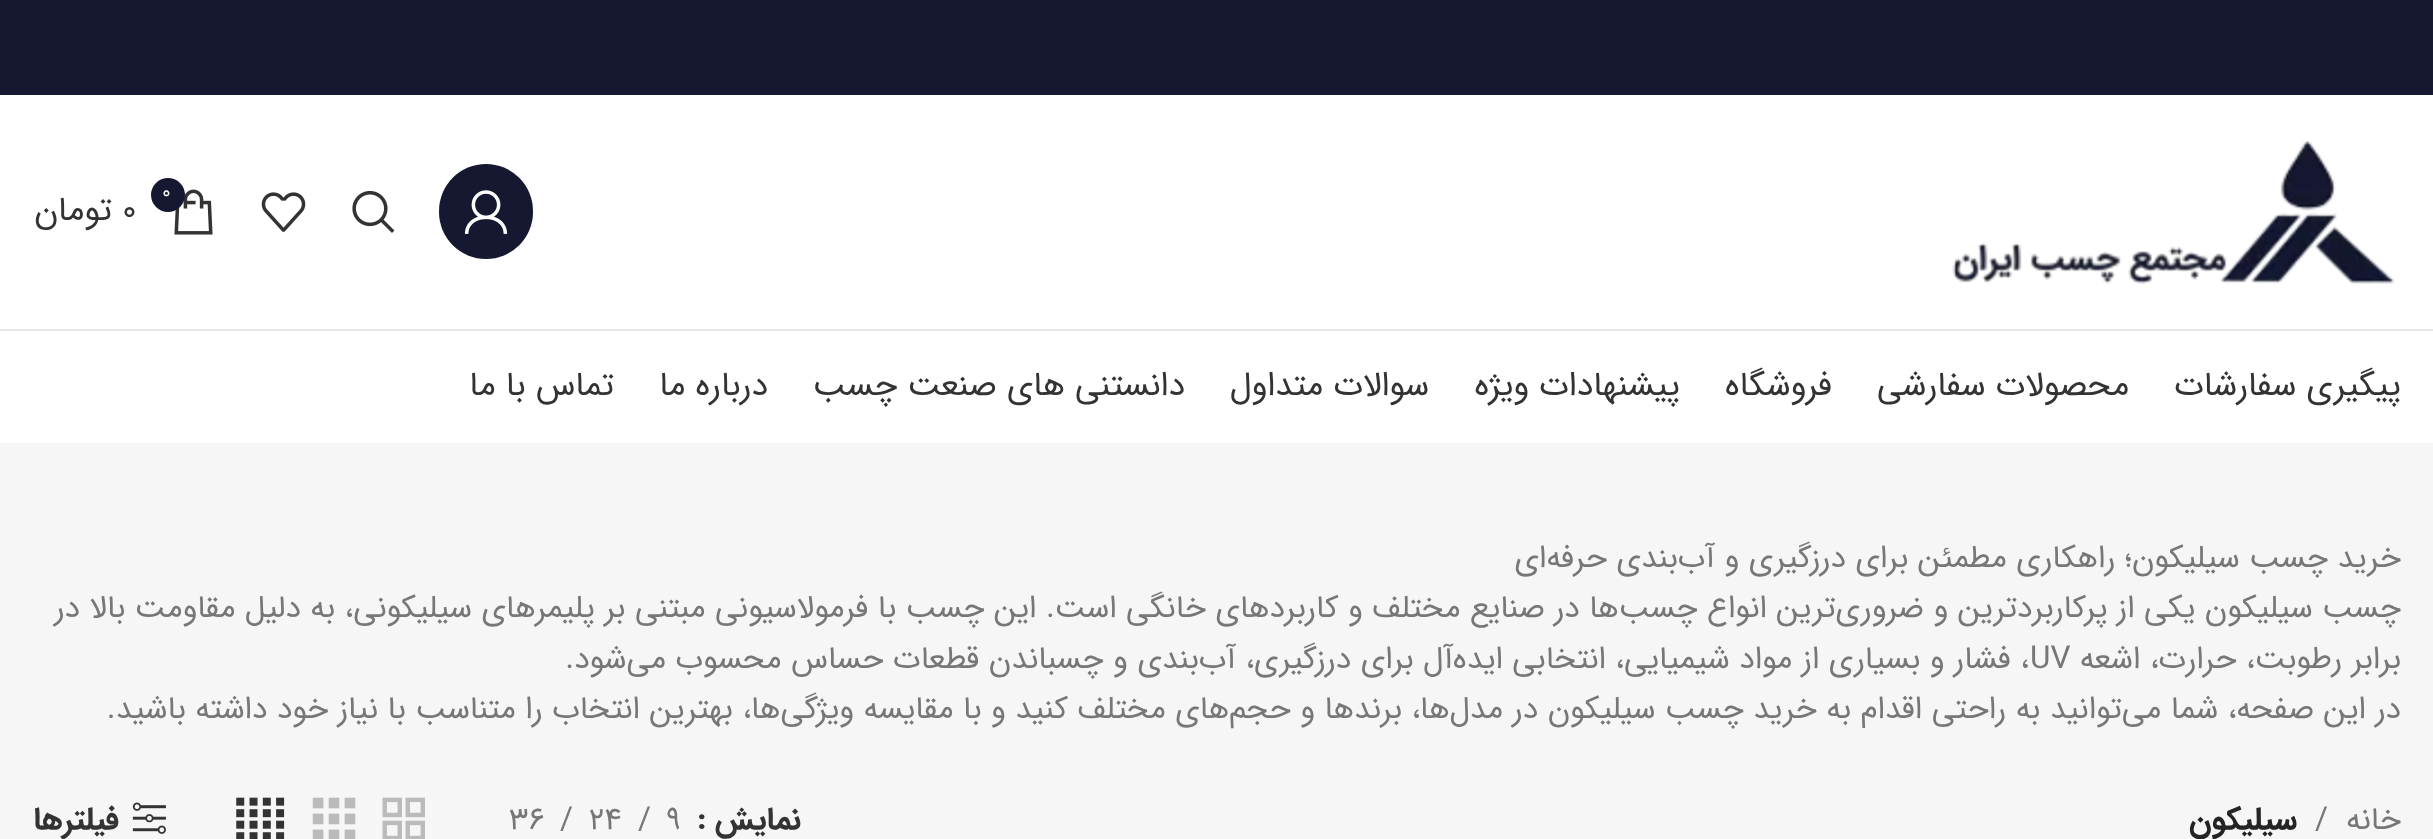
<svg xmlns="http://www.w3.org/2000/svg" width="2433" height="839">
	<rect width="100%" height="100%" fill="#FFFFFF" />
	<rect x="0" y="0" width="2433" height="95" fill="#151830" />
	<rect x="0" y="329" width="2433" height="2" fill="#E6E6E6" />
	<image x="1952" y="141" width="443" height="143" href="assets/img1.png" />
	<rect x="439" y="164" width="94" height="95" rx="47" fill="#151830" />
	<image x="464" y="190" width="44" height="44" href="assets/img2.png" />
	<image x="352" y="191" width="43" height="42" href="assets/img3.png" />
	<image x="261" y="192" width="45" height="40" href="assets/img4.png" />
	<image x="174" y="189" width="39" height="46" href="assets/img5.png" />
	<circle cx="168" cy="195" r="17" fill="#151830" />
	<text x="162" y="198" font-family="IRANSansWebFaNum" font-size="20" fill="#FFFFFF">0</text>
	<text x="122" y="220" font-family="IRANSansWebFaNum" font-size="33.75" fill="#333333">0</text>
	<g font-family="IRANSansWebFaNum" font-size="33.75" direction="rtl" fill="#333333">
		<text x="112" y="220">تومان</text>
		<text x="2401" y="395">پیگیری سفارشات</text>
		<text x="2129" y="395">محصولات سفارشی</text>
		<text x="1832" y="395">فروشگاه</text>
		<text x="1680" y="395">پیشنهادات ویژه</text>
		<text x="1429" y="395">سوالات متداول</text>
		<text x="1185" y="395">دانستنی های صنعت چسب</text>
		<text x="768" y="395">درباره ما</text>
		<text x="614" y="395">تماس با ما</text>
	</g>
	<rect x="0" y="443" width="2433" height="396" fill="#F6F6F6" />
	<g font-family="IRANSansWebFaNum" font-size="31.5" direction="rtl" fill="#777777">
		<text x="2401" y="567">خرید چسب سیلیکون؛ راهکاری مطمئن برای درزگیری و آب‌بندی حرفه‌ای</text>
		<text x="2401" y="617">چسب سیلیکون یکی از پرکاربردترین و ضروری‌ترین انواع چسب‌ها در صنایع مختلف و کاربردهای خانگی است. این چسب با فرمولاسیونی مبتنی بر پلیمرهای سیلیکونی، به دلیل مقاومت بالا در</text>
		<text x="2401" y="668">برابر رطوبت، حرارت، اشعه</text>
	</g>
	<text x="2030" y="668" font-family="IRANSansWebFaNum" font-size="31.5" fill="#777777">UV</text>
	<g font-family="IRANSansWebFaNum" font-size="31.5" direction="rtl" fill="#777777">
		<text x="2029" y="668">، فشار و بسیاری از مواد شیمیایی، انتخابی ایده‌آل برای درزگیری، آب‌بندی و چسباندن قطعات حساس محسوب می‌شود.</text>
		<text x="2401" y="718">در این صفحه، شما می‌توانید به راحتی اقدام به خرید چسب سیلیکون در مدل‌ها، برندها و حجم‌های مختلف کنید و با مقایسه ویژگی‌ها، بهترین انتخاب را متناسب با نیاز خود داشته باشید.</text>
		<text x="2401" y="829">خانه</text>
	</g>
	<text x="2315" y="829" font-family="IRANSansWebFaNum" font-size="31.5" fill="#777777">/</text>
	<text x="2297" y="829" font-family="IRANSansWebFaNum" font-size="31.5" font-weight="700" direction="rtl" fill="#242424">سیلیکون</text>
	<text x="801" y="829" font-family="IRANSansWebFaNum" font-size="31.5" font-weight="700" direction="rtl" fill="#333333">نمایش</text>
	<text x="697" y="829" font-family="IRANSansWebFaNum" font-size="31.5" font-weight="700" fill="#333333">:</text>
	<g font-family="IRANSansWebFaNum" font-size="31.5" fill="#777777">
		<text x="666" y="829">9</text>
		<text x="638" y="829">/</text>
		<text x="589" y="829">24</text>
		<text x="560" y="829">/</text>
		<text x="509" y="829">36</text>
	</g>
	<image x="382" y="797" width="43" height="42" href="assets/img6.png" />
	<image x="312" y="797" width="44" height="42" href="assets/img7.png" />
	<image x="236" y="797" width="49" height="42" href="assets/img8.png" />
	<image x="132" y="802" width="34" height="32" href="assets/img9.png" />
	<text x="119" y="829" font-family="IRANSansWebFaNum" font-size="31.5" font-weight="700" direction="rtl" fill="#333333">فیلترها</text>
</svg>
